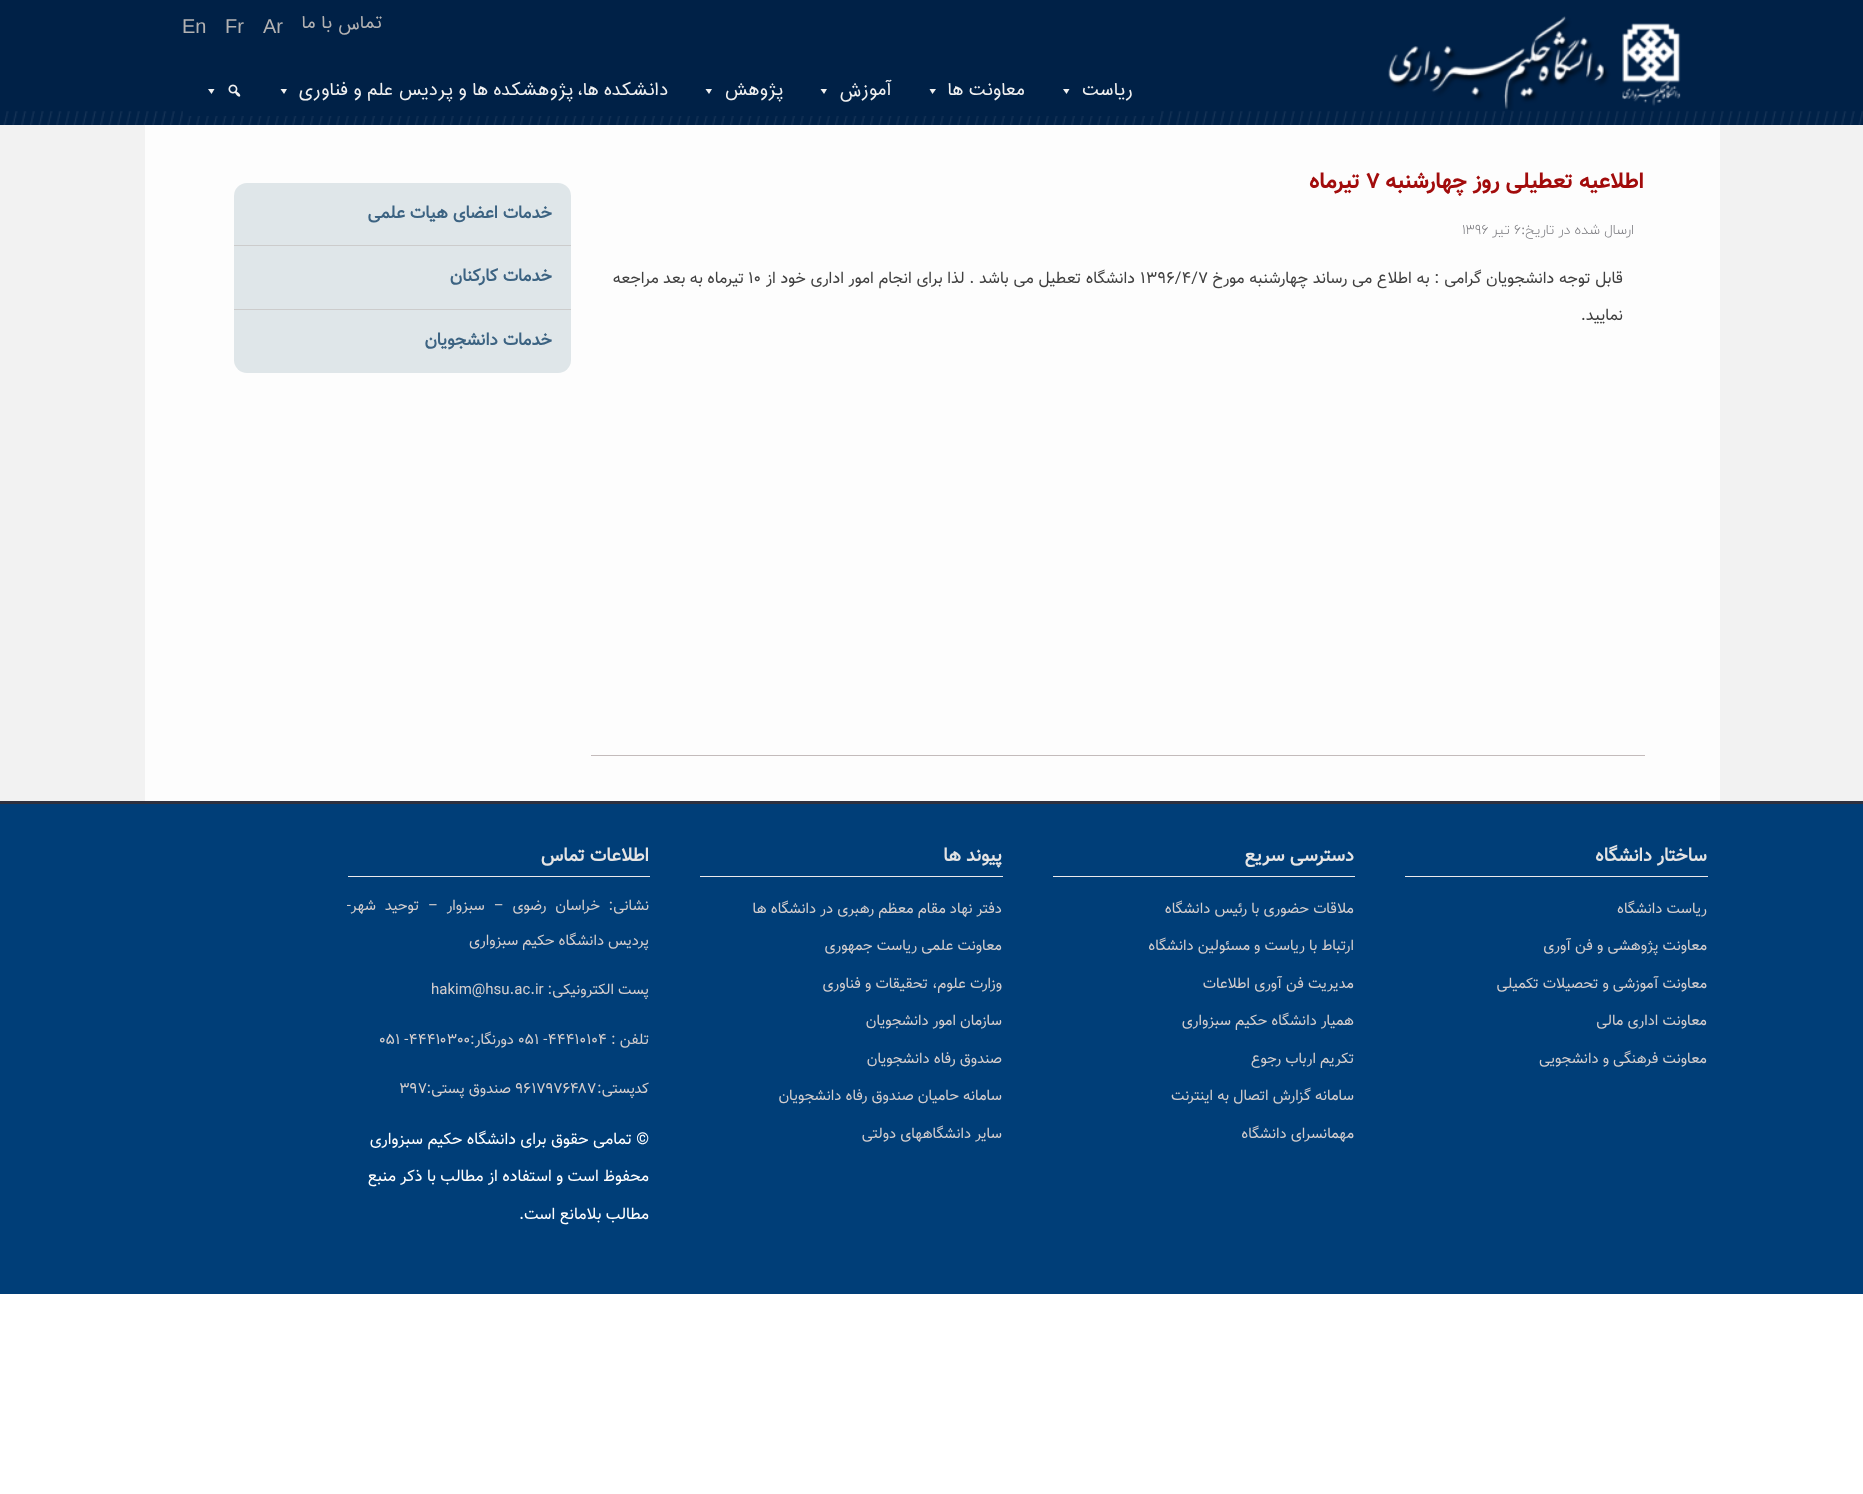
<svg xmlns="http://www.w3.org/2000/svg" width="1863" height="1494">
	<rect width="100%" height="100%" fill="#FFFFFF" />
	<rect x="0" y="0" width="1863" height="125" fill="#002147" />
	<image x="3" y="111" width="1860" height="14" href="assets/img1.png" />
	<image x="1388" y="16" width="293" height="94" href="assets/img2.png" />
	<text x="382" y="28" font-family="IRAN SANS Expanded" font-size="16.25" direction="rtl" fill="#B3B2B2">تماس با ما</text>
	<g font-family="Liberation Sans" font-size="20" fill="#B3B2B2">
		<text x="263" y="33">Ar</text>
		<text x="225" y="33">Fr</text>
		<text x="182" y="33">En</text>
	</g>
	<rect x="183" y="111" width="972" height="5" fill="#002147" />
	<text x="1133" y="95" font-family="IRAN SANS Expanded" font-size="16.25" direction="rtl" fill="#F1F1F1">ریاست</text>
	<path d="M1069.5 89L1066.5 94L1063 89Z" fill="#F1F1F1" />
	<text x="1025" y="95" font-family="IRAN SANS Expanded" font-size="16.25" direction="rtl" fill="#F1F1F1">معاونت ها</text>
	<path d="M936 89L932.5 94L929.5 89Z" fill="#F1F1F1" />
	<text x="891" y="95" font-family="IRAN SANS Expanded" font-size="16.25" direction="rtl" fill="#F1F1F1">آموزش</text>
	<path d="M827 89L824 94L820.5 89Z" fill="#F1F1F1" />
	<text x="783" y="95" font-family="IRAN SANS Expanded" font-size="16.25" direction="rtl" fill="#F1F1F1">پژوهش</text>
	<path d="M712 89L709 94L705.5 89Z" fill="#F1F1F1" />
	<text x="668" y="95" font-family="IRAN SANS Expanded" font-size="16.25" direction="rtl" fill="#F1F1F1">دانشکده ها، پژوهشکده ها و پردیس علم و فناوری</text>
	<path d="M287 89L284 94L280.5 89Z" fill="#F1F1F1" />
	<image x="228" y="84" width="13" height="13" href="assets/img3.png" />
	<path d="M214.5 89L211.5 94L208 89Z" fill="#F1F1F1" />
	<rect x="0" y="125" width="1863" height="676" fill="#F2F2F2" />
	<rect x="145" y="125" width="1575" height="676" fill="#FDFDFD" />
	<text x="1644" y="188" font-family="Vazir" font-size="22.5" font-weight="700" direction="rtl" fill="#A20C0C">اطلاعیه تعطیلی روز چهارشنبه</text>
	<text x="1366" y="188" font-family="Vazir" font-size="22.5" font-weight="700" fill="#A20C0C">۷</text>
	<text x="1360" y="188" font-family="Vazir" font-size="22.5" font-weight="700" direction="rtl" fill="#A20C0C">تیرماه</text>
	<text x="1634" y="234" font-family="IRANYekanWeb" font-size="13.75" font-weight="300" direction="rtl" fill="#79797E">ارسال شده در تاریخ</text>
	<text x="1525" y="234" font-family="Liberation Serif" font-size="13.75" direction="rtl" fill="#79797E">:</text>
	<text x="1514" y="234" font-family="IRANYekanWeb" font-size="13.75" font-weight="300" fill="#79797E">۶</text>
	<text x="1510" y="234" font-family="IRANYekanWeb" font-size="13.75" font-weight="300" direction="rtl" fill="#79797E">تیر</text>
	<text x="1462" y="234" font-family="IRANYekanWeb" font-size="13.75" font-weight="300" fill="#79797E">۱۳۹۶</text>
	<rect x="591" y="755" width="1054" height="1" fill="#C3BBBB" />
	<text x="1623" y="283" word-spacing="0.25" font-family="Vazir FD" font-size="16.25" direction="rtl" fill="#404040">قابل توجه دانشجویان گرامی : به اطلاع می رساند چهارشنبه مورخ</text>
	<text x="1140" y="283" font-family="Vazir FD" font-size="16.25" fill="#404040">۱۳۹۶/۴/۷</text>
	<text x="1135" y="283" word-spacing="0.25" font-family="Vazir FD" font-size="16.25" direction="rtl" fill="#404040">دانشگاه تعطیل می باشد . لذا برای انجام امور اداری خود از</text>
	<text x="748" y="283" font-family="Vazir FD" font-size="16.25" fill="#404040">۱۰</text>
	<g font-family="Vazir FD" font-size="16.25" direction="rtl" fill="#404040">
		<text x="744" y="283">تیرماه به بعد مراجعه</text>
		<text x="1623" y="320">نمایید.</text>
	</g>
	<rect x="234" y="183" width="337" height="190" rx="13" fill="#DFE6E9" />
	<rect x="234" y="245" width="337" height="1" fill="#CCCCCC" />
	<text x="552" y="218" font-family="Vazir FD" font-size="17.5" font-weight="700" direction="rtl" fill="#3C6382">خدمات اعضای هیات علمی</text>
	<rect x="234" y="309" width="337" height="1" fill="#CCCCCC" />
	<g font-family="Vazir FD" font-size="17.5" font-weight="700" direction="rtl" fill="#3C6382">
		<text x="552" y="281">خدمات کارکنان</text>
		<text x="552" y="345">خدمات دانشجویان</text>
	</g>
	<rect x="0" y="804" width="1863" height="490" fill="#003E78" />
	<rect x="0" y="801" width="1863" height="3" fill="#2F313F" />
	<rect x="1405" y="876" width="303" height="1" fill="#EBE9EC" />
	<text x="1707" y="861" font-family="Vazir FD" font-size="18.75" font-weight="700" direction="rtl" fill="#E4E4E4">ساختار دانشگاه</text>
	<g font-family="Vazir FD" font-size="15" direction="rtl" fill="#D4CECE">
		<text x="1707" y="913">ریاست دانشگاه</text>
		<text x="1707" y="950">معاونت پژوهشی و فن آوری</text>
		<text x="1707" y="988">معاونت آموزشی و تحصیلات تکمیلی</text>
		<text x="1707" y="1025">معاونت اداری مالی</text>
		<text x="1707" y="1063">معاونت فرهنگی و دانشجویی</text>
	</g>
	<rect x="1053" y="876" width="302" height="1" fill="#EBE9EC" />
	<text x="1354" y="861" font-family="Vazir FD" font-size="18.75" font-weight="700" direction="rtl" fill="#E4E4E4">دسترسی سریع</text>
	<g font-family="Vazir FD" font-size="15" direction="rtl" fill="#D4CECE">
		<text x="1354" y="913">ملاقات حضوری با رئیس دانشگاه</text>
		<text x="1354" y="950">ارتباط با ریاست و مسئولین دانشگاه</text>
		<text x="1354" y="988">مدیریت فن آوری اطلاعات</text>
		<text x="1354" y="1025">همیار دانشگاه حکیم سبزواری</text>
		<text x="1354" y="1063">تکریم ارباب رجوع</text>
		<text x="1354" y="1100">سامانه گزارش اتصال به اینترنت</text>
		<text x="1354" y="1138">مهمانسرای دانشگاه</text>
	</g>
	<rect x="700" y="876" width="303" height="1" fill="#EBE9EC" />
	<text x="1002" y="861" font-family="Vazir FD" font-size="18.75" font-weight="700" direction="rtl" fill="#E4E4E4">پیوند ها</text>
	<g font-family="Vazir FD" font-size="15" direction="rtl" fill="#D4CECE">
		<text x="1002" y="913">دفتر نهاد مقام معظم رهبری در دانشگاه ها</text>
		<text x="1002" y="950">معاونت علمی ریاست جمهوری</text>
		<text x="1002" y="988">وزارت علوم، تحقیقات و فناوری</text>
		<text x="1002" y="1025">سازمان امور دانشجویان</text>
		<text x="1002" y="1063">صندوق رفاه دانشجویان</text>
		<text x="1002" y="1100">سامانه حامیان صندوق رفاه دانشجویان</text>
		<text x="1002" y="1138">سایر دانشگاههای دولتی</text>
	</g>
	<rect x="348" y="876" width="302" height="1" fill="#EBE9EC" />
	<text x="649" y="861" font-family="Vazir FD" font-size="18.75" font-weight="700" direction="rtl" fill="#E4E4E4">اطلاعات تماس</text>
	<g font-family="Vazir FD" font-size="15" direction="rtl" fill="#D4CECE">
		<text x="649" y="910">نشانی:</text>
		<text x="600" y="910" word-spacing="4.75">خراسان رضوی – سبزوار – توحید شهر-</text>
		<text x="649" y="945">پردیس دانشگاه حکیم سبزواری</text>
		<text x="649" y="994">پست الکترونیکی:</text>
	</g>
	<text x="431" y="994" font-family="Vazir FD" font-size="15" fill="#D4CECE">hakim@hsu.ac.ir</text>
	<text x="649" y="1044" font-family="Vazir FD" font-size="15" direction="rtl" fill="#D4CECE">تلفن :</text>
	<text x="518" y="1044" font-family="Vazir FD" font-size="15" fill="#D4CECE">۰۵۱ -۴۴۴۱۰۱۰۴</text>
	<text x="514" y="1044" font-family="Vazir FD" font-size="15" direction="rtl" fill="#D4CECE">دورنگار:</text>
	<text x="379" y="1044" font-family="Vazir FD" font-size="15" fill="#D4CECE">۰۵۱ -۴۴۴۱۰۳۰۰</text>
	<g font-family="Vazir FD" font-size="15" direction="rtl" fill="#D4CECE">
		<text x="649" y="1093">کد</text>
		<text x="635" y="1093">پستی:</text>
	</g>
	<text x="515" y="1093" font-family="Vazir FD" font-size="15" fill="#D4CECE">۹۶۱۷۹۷۶۴۸۷</text>
	<text x="511" y="1093" font-family="Vazir FD" font-size="15" direction="rtl" fill="#D4CECE">صندوق پستی:</text>
	<text x="399" y="1093" font-family="Vazir FD" font-size="15" fill="#D4CECE">۳۹۷</text>
	<g font-family="Vazir FD" font-size="16.25" direction="rtl" fill="#FFFFFF">
		<text x="649" y="1144">© تمامی حقوق برای دانشگاه حکیم سبزواری</text>
		<text x="649" y="1181">محفوظ است و استفاده از مطالب با ذکر منبع</text>
		<text x="649" y="1219">مطالب بلامانع است.</text>
	</g>
</svg>
